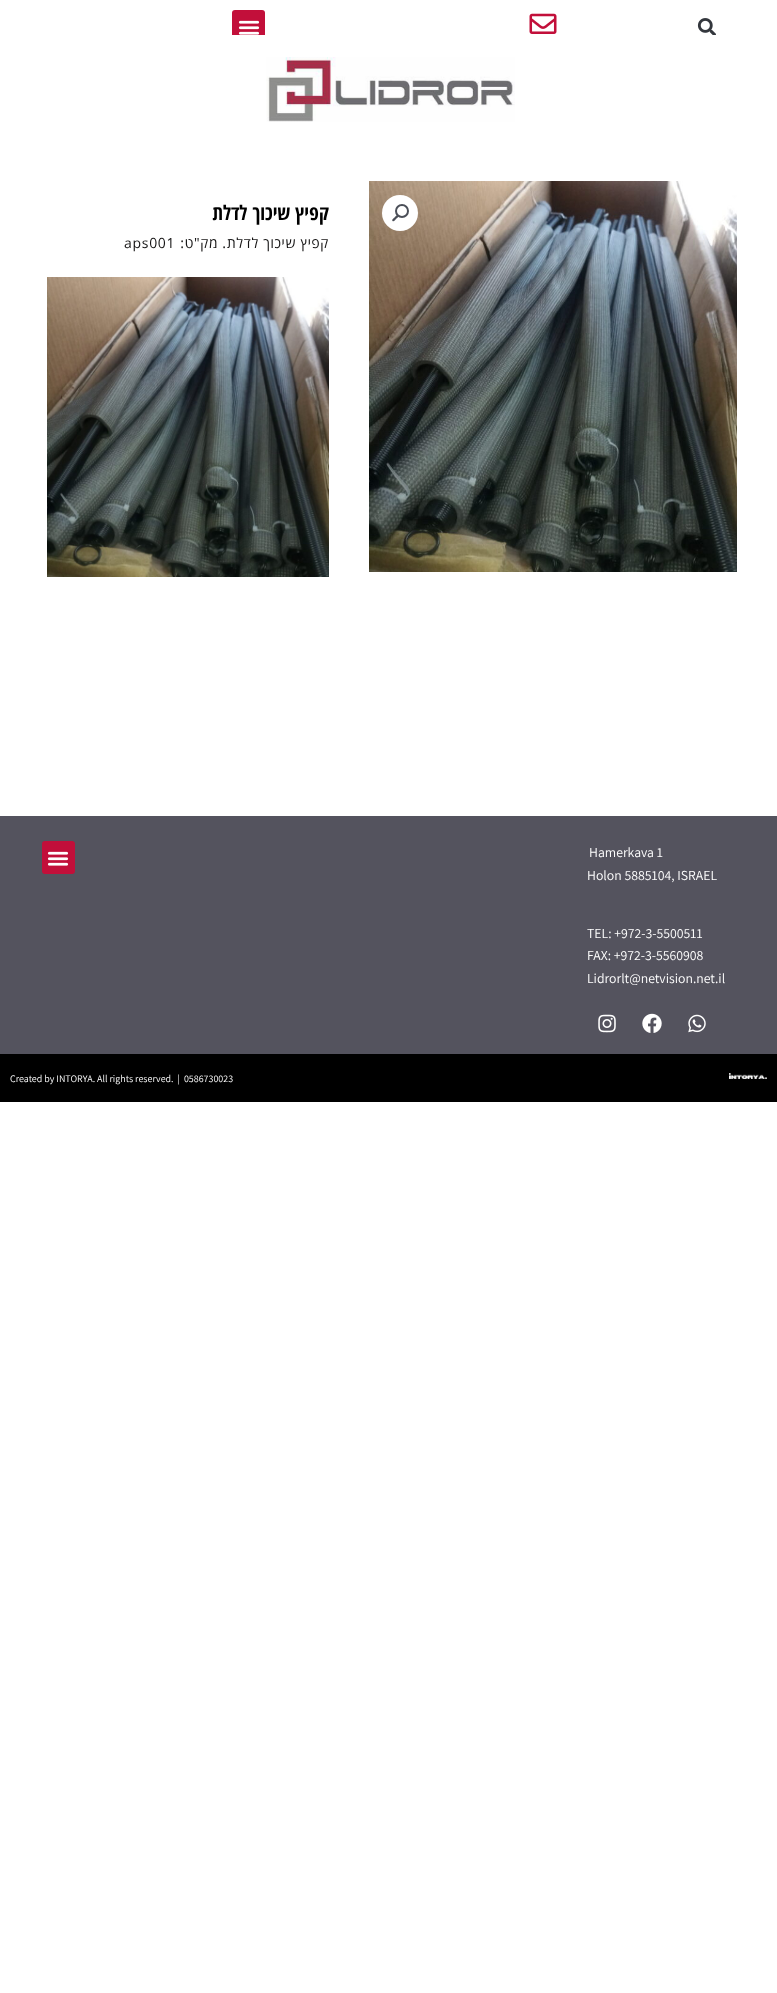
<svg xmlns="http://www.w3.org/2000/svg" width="777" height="1993">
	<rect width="100%" height="100%" fill="#FFFFFF" />
	<rect x="232" y="10" width="33" height="33" rx="3" fill="#C20F3A" />
	<image x="238" y="20" width="22" height="15" href="assets/img1.png" />
	<image x="529" y="13" width="28" height="21" href="assets/img2.png" />
	<image x="697" y="18" width="19" height="17" href="assets/img3.png" />
	<rect x="232" y="35" width="33" height="8" fill="#FFFFFF" />
	<image x="266" y="57" width="249" height="65" href="assets/img4.png" />
	<text x="329" y="220" font-family="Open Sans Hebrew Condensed" font-size="20" font-weight="700" direction="rtl" fill="#000000">קפיץ שיכוך לדלת</text>
	<text x="124" y="248" font-family="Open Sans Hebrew" font-size="14" letter-spacing="0.7" fill="#151414">aps001</text>
	<text x="329" y="248" font-family="Open Sans Hebrew" font-size="14" letter-spacing="0.7" direction="rtl" fill="#151414">קפיץ שיכוך לדלת. מק"ט:</text>
	<image x="47" y="277" width="282" height="300" href="assets/img5.png" />
	<image x="369" y="181" width="368" height="391" href="assets/img6.png" />
	<circle cx="400" cy="213" r="18" fill="#FFFFFF" />
	<circle cx="402" cy="211" r="6" fill="none" stroke="#4B4F58" stroke-width="2" />
	<path d="M398.5 215.5C399.5 216.5 397 218 396 219C395.5 219.5 394 222 392.5 221C391.5 219.5 394 218 394.5 217.5C395.5 217 397 214 398.5 215.5Z" fill="#4B4F58" />
	<rect x="0" y="816" width="777" height="238" fill="#54535E" />
	<rect x="42" y="841" width="33" height="33" rx="3" fill="#C20F3A" />
	<image x="47" y="851" width="22" height="15" href="assets/img1.png" />
	<g font-family="Assistant" font-size="13.75" fill="#FFFFFF">
		<text x="589" y="857">Hamerkava 1</text>
		<text x="587" y="880">Holon 5885104, ISRAEL</text>
		<text x="587" y="938">TEL: +972-3-5500511</text>
		<text x="587" y="960">FAX: +972-3-5560908</text>
		<text x="587" y="983">Lidrorlt@netvision.net.il</text>
	</g>
	<image x="598" y="1014" width="18" height="19" href="assets/img7.png" />
	<image x="642" y="1013" width="20" height="20" href="assets/img8.png" />
	<image x="688" y="1014" width="18" height="19" href="assets/img9.png" />
	<rect x="0" y="1054" width="777" height="48" fill="#000000" />
	<text x="10" y="1082" font-family="Assistant" font-size="10" fill="#FFFFFF" xml:space="preserve">Created by INTORYA. All rights reserved.  |  0586730023</text>
	<image x="729" y="1073" width="38" height="6" href="assets/img10.png" />
</svg>
